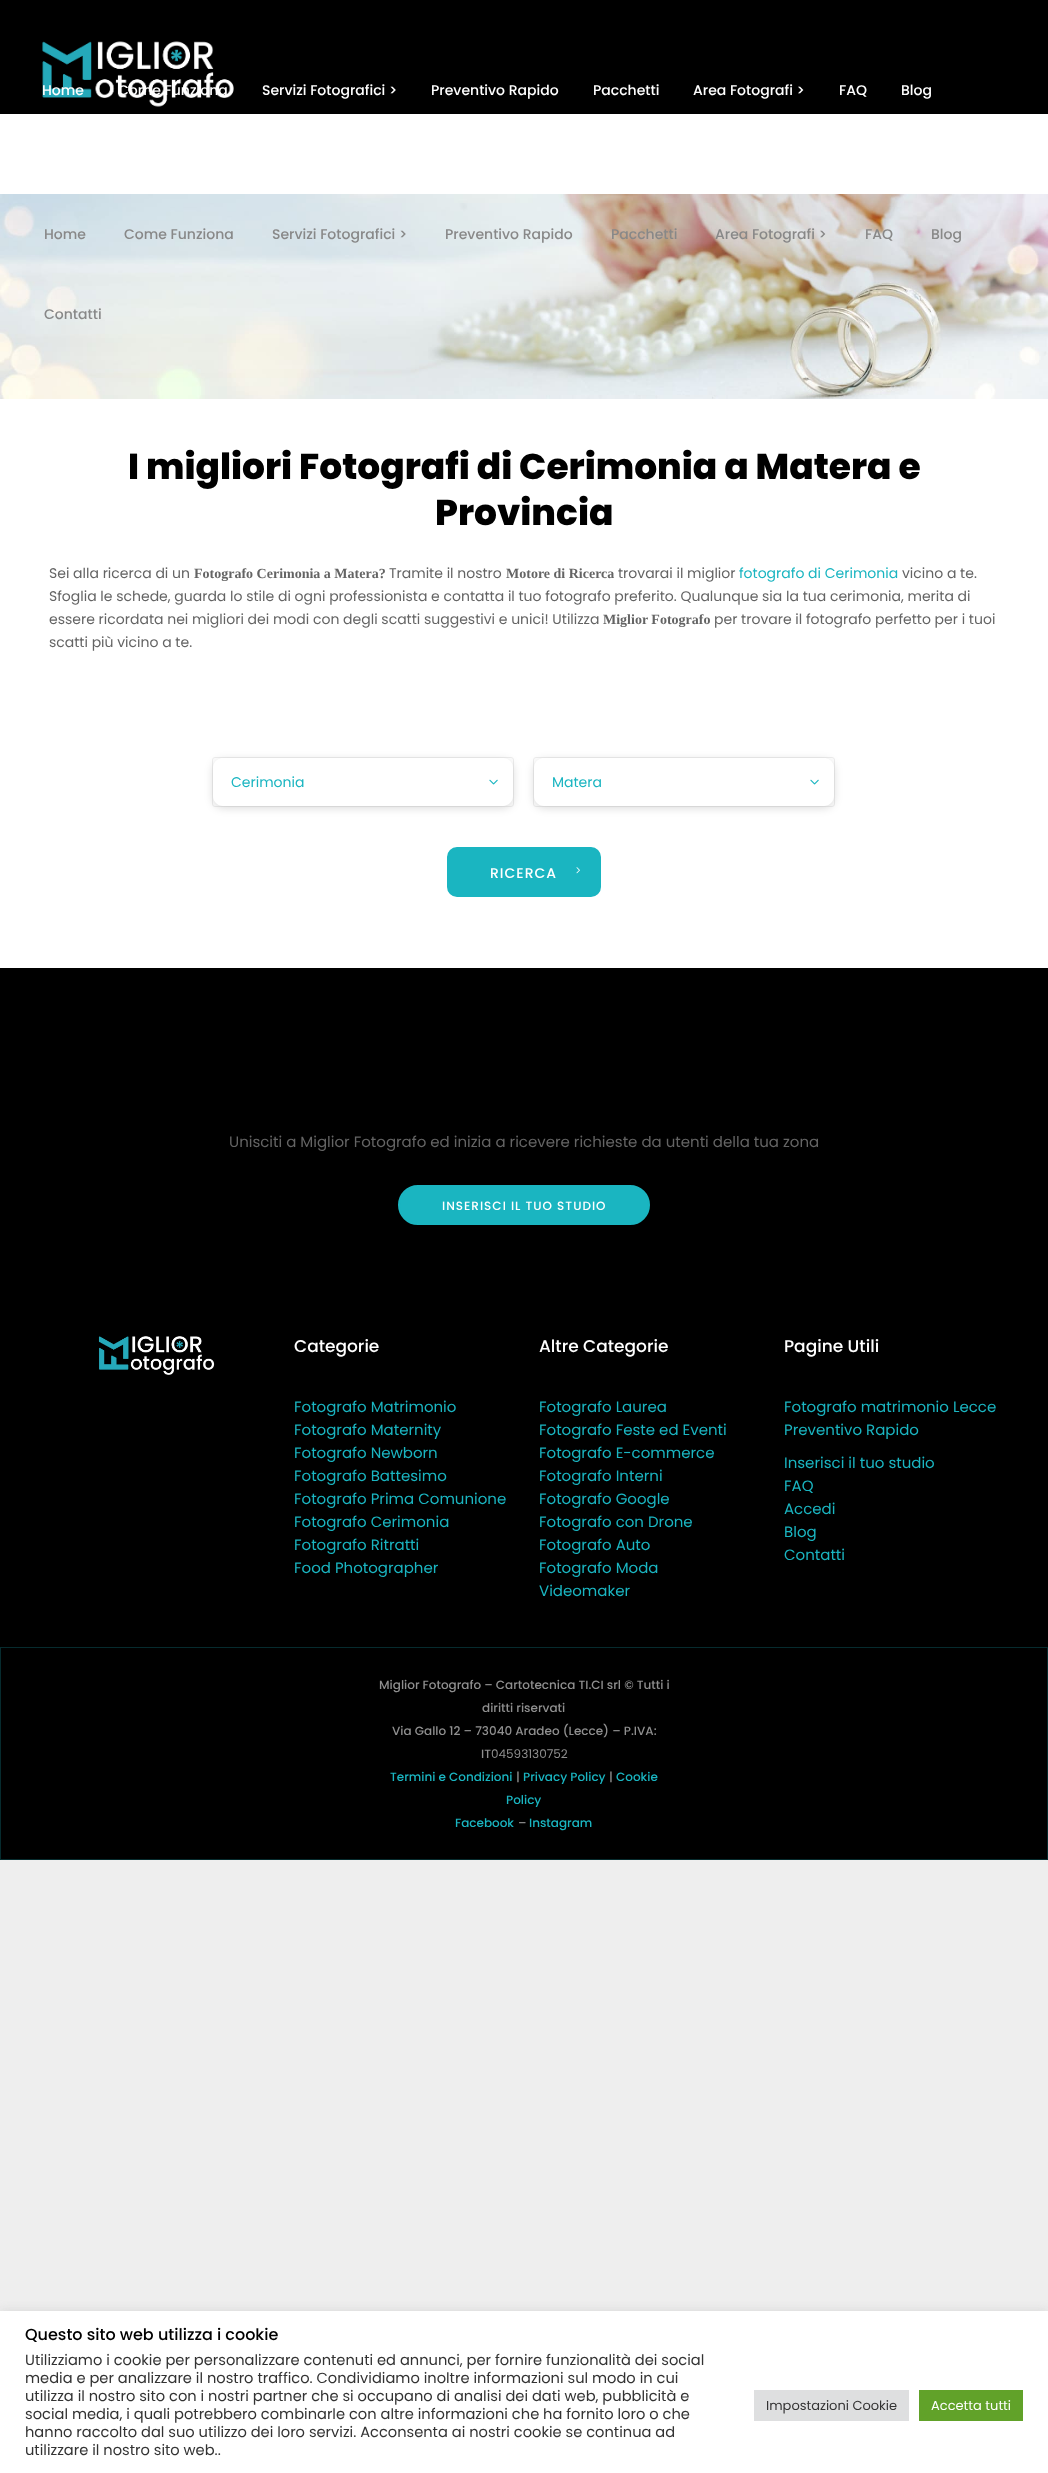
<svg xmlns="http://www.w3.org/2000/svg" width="1048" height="2473">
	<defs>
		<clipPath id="clip1"><path d="M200 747H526V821H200ZM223 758H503C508.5 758 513 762.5 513 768V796C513 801.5 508.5 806 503 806H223C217.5 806 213 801.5 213 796V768C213 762.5 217.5 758 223 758Z" clip-rule="evenodd" /></clipPath>
		<clipPath id="clip2"><path d="M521 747H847V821H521ZM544 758H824C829.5 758 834 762.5 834 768V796C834 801.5 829.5 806 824 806H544C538.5 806 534 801.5 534 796V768C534 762.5 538.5 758 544 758Z" clip-rule="evenodd" /></clipPath>
	</defs>
	<rect width="100%" height="100%" fill="#EEEEEE" />
	<rect x="0" y="114" width="1048" height="854" fill="#FFFFFF" />
	<rect x="0" y="0" width="1048" height="114" fill="#000000" />
	<image x="42" y="41" width="192" height="66" href="assets/img1.png" />
	<g font-family="Poppins" font-size="14" font-weight="500" fill="#FFFFFF">
		<text x="42" y="95">Home</text>
		<text x="118" y="95">Come Funziona</text>
		<text x="262" y="95">Servizi Fotografici &gt;</text>
		<text x="431" y="95">Preventivo Rapido</text>
		<text x="593" y="95">Pacchetti</text>
		<text x="693" y="95">Area Fotografi &gt;</text>
		<text x="839" y="95">FAQ</text>
		<text x="901" y="95">Blog</text>
	</g>
	<image x="0" y="194" width="1048" height="205" href="assets/img2.png" />
	<g font-family="Poppins" font-size="14" font-weight="500" fill="#888888">
		<text x="44" y="239">Home</text>
		<text x="124" y="239">Come Funziona</text>
		<text x="272" y="239">Servizi Fotografici &gt;</text>
		<text x="445" y="239">Preventivo Rapido</text>
		<text x="611" y="239">Pacchetti</text>
		<text x="715" y="239">Area Fotografi &gt;</text>
		<text x="865" y="239">FAQ</text>
		<text x="931" y="239">Blog</text>
		<text x="44" y="319">Contatti</text>
	</g>
	<g font-family="Poppins" font-size="36" font-weight="800" fill="#000000">
		<text x="128" y="479">I migliori Fotografi di Cerimonia a Matera e</text>
		<text x="435" y="525">Provincia</text>
	</g>
	<text x="49" y="578" font-family="Poppins" font-size="14" fill="#646464">Sei alla ricerca di un</text>
	<text x="194" y="578" font-family="Liberation Serif" font-size="14" font-weight="700" fill="#646464">Fotografo Cerimonia a Matera?</text>
	<text x="389" y="578" font-family="Poppins" font-size="14" fill="#646464">Tramite il nostro</text>
	<text x="506" y="578" font-family="Liberation Serif" font-size="14" font-weight="700" fill="#646464">Motore di Ricerca</text>
	<text x="618" y="578" font-family="Poppins" font-size="14" fill="#646464">trovarai il miglior</text>
	<text x="739" y="578" font-family="Poppins" font-size="14" fill="#1AB5C1">fotografo di Cerimonia</text>
	<g font-family="Poppins" font-size="14" fill="#646464">
		<text x="902" y="578">vicino a te.</text>
		<text x="49" y="601">Sfoglia le schede, guarda lo stile di ogni professionista e contatta il tuo fotografo preferito. Qualunque sia la tua cerimonia, merita di</text>
		<text x="49" y="624">essere ricordata nei migliori dei modi con degli scatti suggestivi e unici! Utilizza</text>
	</g>
	<text x="603" y="624" font-family="Liberation Serif" font-size="14" font-weight="700" fill="#646464">Miglior Fotografo</text>
	<g font-family="Poppins" font-size="14" fill="#646464">
		<text x="714" y="624">per trovare il fotografo perfetto per i tuoi</text>
		<text x="49" y="647">scatti più vicino a te.</text>
	</g>
	<rect x="212.5" y="757.5" width="301" height="49" rx="2.5" fill="none" stroke="#EEEEEE" />
	<g clip-path="url(#clip1)">
		<rect x="213" y="760" width="300" height="48" rx="10" fill="#000000" fill-opacity="0.15" filter="blur(4px)" />
	</g>
	<text x="231" y="787" font-family="Poppins" font-size="14" fill="#1AB5C1">Cerimonia</text>
	<image x="489" y="779" width="9" height="6" href="assets/img3.png" />
	<rect x="533.5" y="757.5" width="301" height="49" rx="2.5" fill="none" stroke="#EEEEEE" />
	<g clip-path="url(#clip2)">
		<rect x="534" y="760" width="300" height="48" rx="10" fill="#000000" fill-opacity="0.15" filter="blur(4px)" />
	</g>
	<text x="552" y="787" font-family="Poppins" font-size="14" fill="#1AB5C1">Matera</text>
	<image x="810" y="779" width="9" height="6" href="assets/img3.png" />
	<rect x="448" y="848" width="152" height="48" rx="9" fill="#1AB5C1" stroke="#1AB5C1" stroke-width="2" />
	<text x="490" y="878" font-family="Poppins" font-size="14" font-weight="500" letter-spacing="1" fill="#FFFFFF">RICERCA</text>
	<image x="576" y="867" width="4" height="7" href="assets/img4.png" />
	<rect x="0" y="968" width="1048" height="891" fill="#000000" />
	<text x="229" y="1147" font-family="Poppins" font-size="15" fill="#646464">Unisciti a Miglior Fotografo ed inizia a ricevere richieste da utenti della tua zona</text>
	<rect x="399" y="1186" width="250" height="38" rx="19" fill="#1AB5C1" stroke="#1AB5C1" stroke-width="2" />
	<text x="442" y="1210" font-family="Poppins" font-size="12" font-weight="500" letter-spacing="1" fill="#FFFFFF">INSERISCI IL TUO STUDIO</text>
	<image x="98" y="1336" width="117" height="39" href="assets/img5.png" />
	<text x="294" y="1352" font-family="Poppins" font-size="17" font-weight="500" fill="#FFFFFF">Categorie</text>
	<g font-family="Poppins" font-size="15" fill="#1AB5C1">
		<text x="294" y="1412">Fotografo Matrimonio</text>
		<text x="294" y="1435">Fotografo Maternity</text>
		<text x="294" y="1458">Fotografo Newborn</text>
		<text x="294" y="1481">Fotografo Battesimo</text>
		<text x="294" y="1504">Fotografo Prima Comunione</text>
		<text x="294" y="1527">Fotografo Cerimonia</text>
		<text x="294" y="1550">Fotografo Ritratti</text>
		<text x="294" y="1573">Food Photographer</text>
	</g>
	<text x="539" y="1352" font-family="Poppins" font-size="17" font-weight="500" fill="#FFFFFF">Altre Categorie</text>
	<g font-family="Poppins" font-size="15" fill="#1AB5C1">
		<text x="539" y="1412">Fotografo Laurea</text>
		<text x="539" y="1435">Fotografo Feste ed Eventi</text>
		<text x="539" y="1458">Fotografo E-commerce</text>
		<text x="539" y="1481">Fotografo Interni</text>
		<text x="539" y="1504">Fotografo Google</text>
		<text x="539" y="1527">Fotografo con Drone</text>
		<text x="539" y="1550">Fotografo Auto</text>
		<text x="539" y="1573">Fotografo Moda</text>
		<text x="539" y="1596">Videomaker</text>
	</g>
	<text x="784" y="1352" font-family="Poppins" font-size="17" font-weight="500" fill="#FFFFFF">Pagine Utili</text>
	<g font-family="Poppins" font-size="15" fill="#1AB5C1">
		<text x="784" y="1412">Fotografo matrimonio Lecce</text>
		<text x="784" y="1435">Preventivo Rapido</text>
		<text x="784" y="1468">Inserisci il tuo studio</text>
		<text x="784" y="1491">FAQ</text>
		<text x="784" y="1514">Accedi</text>
		<text x="784" y="1537">Blog</text>
		<text x="784" y="1560">Contatti</text>
	</g>
	<rect x="0.5" y="1647.5" width="1047" height="212" fill="none" stroke="#062B2E" />
	<g font-family="Poppins" font-size="12" font-weight="500" fill="#8F8F8F">
		<text x="379" y="1689">Miglior Fotografo – Cartotecnica TI.CI srl © Tutti i</text>
		<text x="482" y="1712">diritti riservati</text>
		<text x="392" y="1735">Via Gallo 12 – 73040 Aradeo (Lecce) – P.IVA:</text>
		<text x="481" y="1758">IT</text>
	</g>
	<text x="491" y="1758" font-family="Poppins" font-size="12" fill="#8F8F8F">04593130752</text>
	<text x="390" y="1781" font-family="Poppins" font-size="12" font-weight="500" fill="#1AB5C1">Termini e Condizioni</text>
	<text x="516" y="1781" font-family="Poppins" font-size="12" font-weight="500" fill="#8F8F8F">|</text>
	<text x="523" y="1781" font-family="Poppins" font-size="12" font-weight="500" fill="#1AB5C1">Privacy Policy</text>
	<text x="609" y="1781" font-family="Poppins" font-size="12" font-weight="500" fill="#8F8F8F">|</text>
	<g font-family="Poppins" font-size="12" font-weight="500" fill="#1AB5C1">
		<text x="616" y="1781">Cookie</text>
		<text x="506" y="1804">Policy</text>
		<text x="455" y="1827">Facebook</text>
	</g>
	<text x="518" y="1827" font-family="Poppins" font-size="12" font-weight="500" fill="#8F8F8F">–</text>
	<text x="529" y="1827" font-family="Poppins" font-size="12" font-weight="500" fill="#1AB5C1">Instagram</text>
	<rect x="0" y="2310" width="1048" height="162" fill="#ACABAB" fill-opacity="0.3" filter="blur(5px)" />
	<rect x="0" y="2311" width="1048" height="162" fill="#FFFFFF" />
	<text x="25" y="2340" font-family="Poppins" font-size="16" font-weight="500" fill="#000000">Questo sito web utilizza i cookie</text>
	<g font-family="Poppins" font-size="14.65" fill="#333333">
		<text x="25" y="2365">Utilizziamo i cookie per personalizzare contenuti ed annunci, per fornire funzionalità dei social</text>
		<text x="25" y="2383">media e per analizzare il nostro traffico. Condividiamo inoltre informazioni sul modo in cui</text>
		<text x="25" y="2401">utilizza il nostro sito con i nostri partner che si occupano di analisi dei dati web, pubblicità e</text>
		<text x="25" y="2419">social media, i quali potrebbero combinarle con altre informazioni che ha fornito loro o che</text>
		<text x="25" y="2437">hanno raccolto dal suo utilizzo dei loro servizi. Acconsenta ai nostri cookie se continua ad</text>
		<text x="25" y="2455">utilizzare il nostro sito web..</text>
	</g>
	<rect x="754" y="2390" width="155" height="31" fill="#DEDFE0" />
	<text x="766" y="2410" font-family="Poppins" font-size="13" fill="#333333">Impostazioni Cookie</text>
	<rect x="919" y="2390" width="104" height="31" fill="#61A229" />
	<text x="931" y="2410" font-family="Poppins" font-size="13" fill="#FFFFFF">Accetta tutti</text>
</svg>
